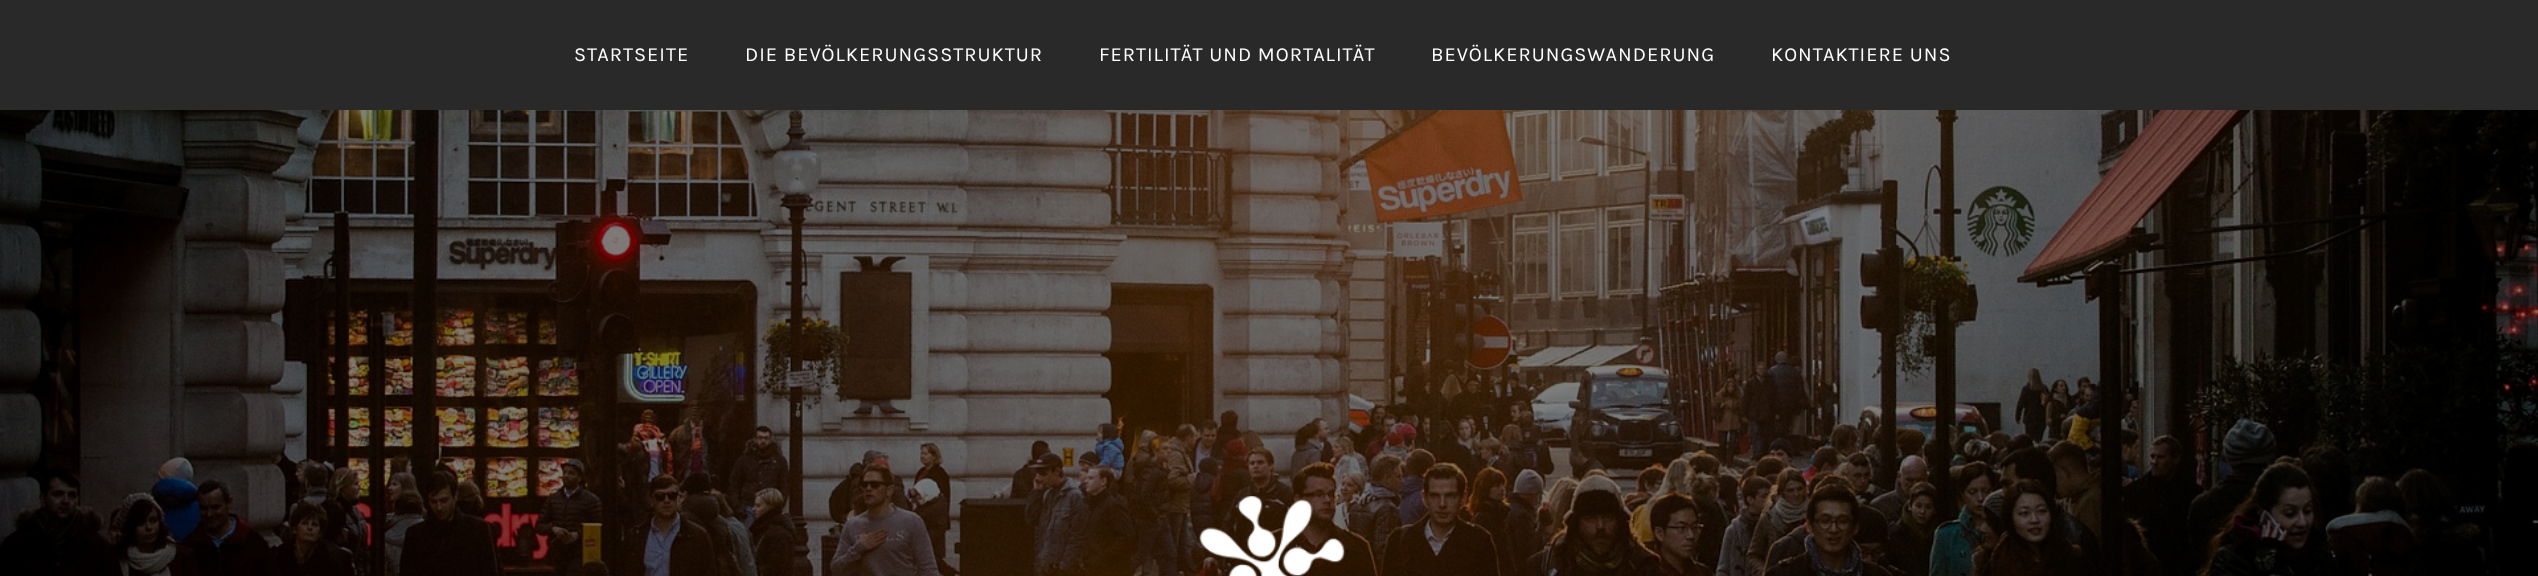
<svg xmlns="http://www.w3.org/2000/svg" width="2538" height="576">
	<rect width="100%" height="100%" fill="#FFFFFF" />
	<rect x="0" y="0" width="2538" height="110" fill="#29292A" />
	<g font-family="Karla" font-size="20" letter-spacing="1" fill="#FFFFFF">
		<text x="574" y="61">STARTSEITE</text>
		<text x="745" y="61">DIE BEVÖLKERUNGSSTRUKTUR</text>
		<text x="1099" y="61">FERTILITÄT UND MORTALITÄT</text>
		<text x="1431" y="61">BEVÖLKERUNGSWANDERUNG</text>
		<text x="1771" y="61">KONTAKTIERE UNS</text>
	</g>
	<image x="0" y="110" width="2538" height="466" href="assets/img1.png" />
	<image x="1198" y="496" width="147" height="80" href="assets/img2.png" />
</svg>
